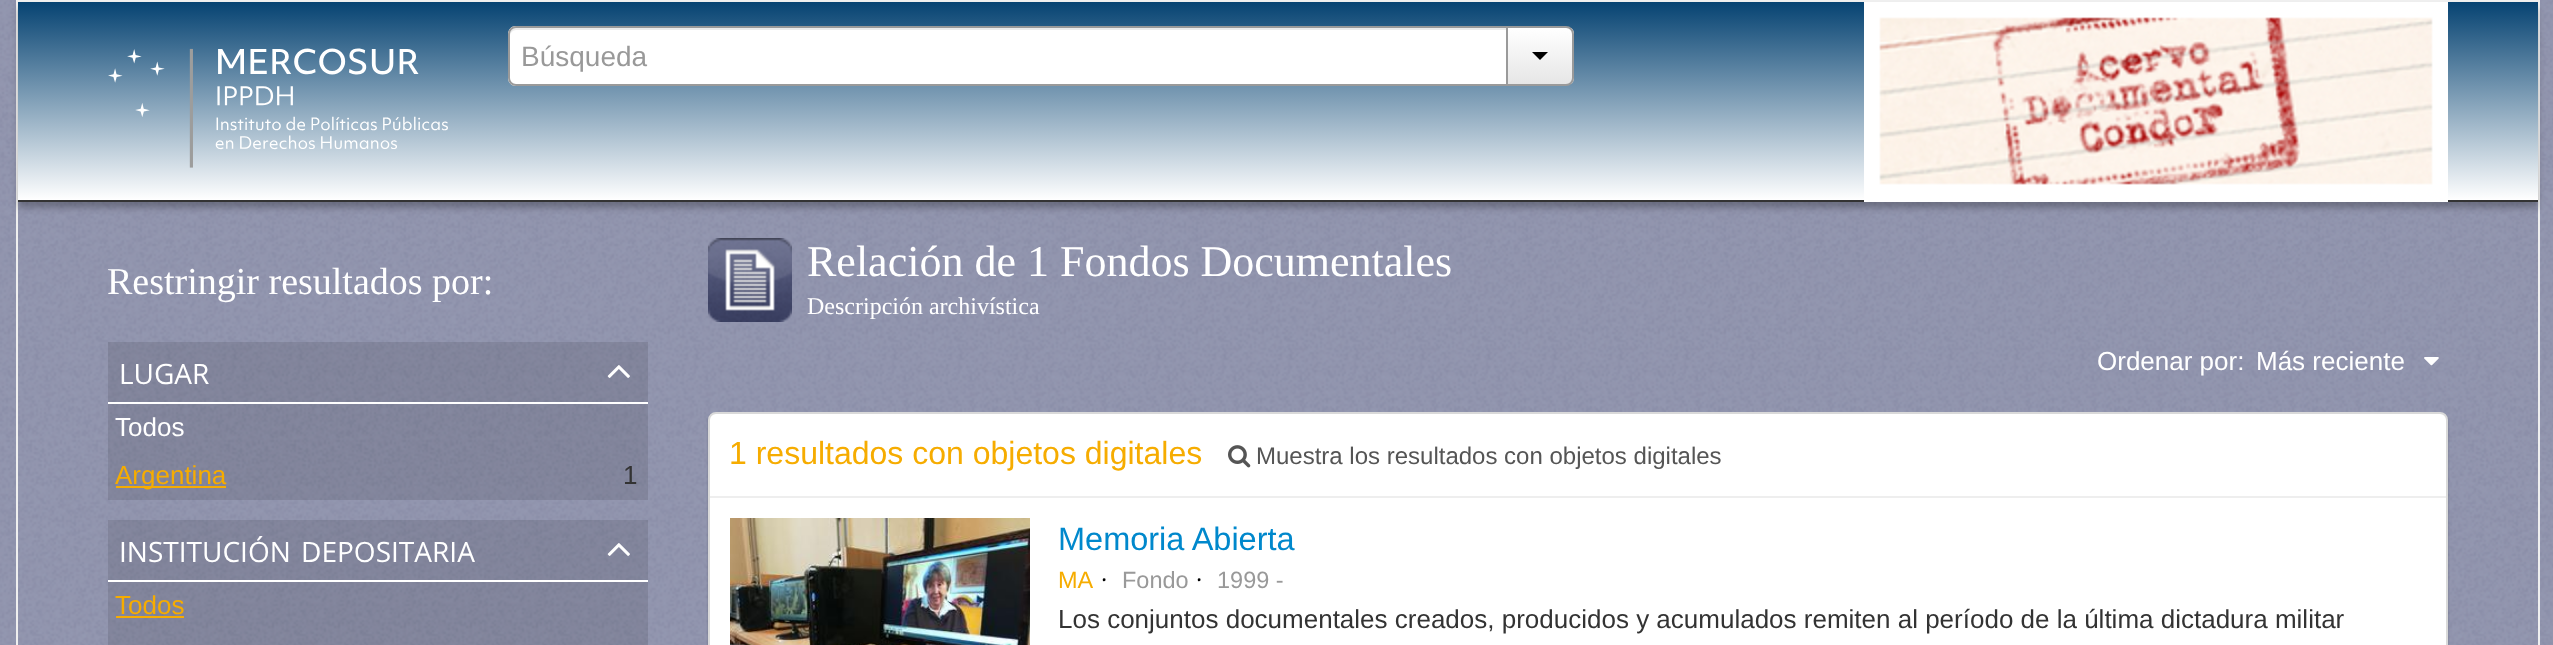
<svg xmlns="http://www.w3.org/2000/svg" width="2553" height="645">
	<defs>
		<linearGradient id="g1" gradientUnits="userSpaceOnUse" x1="1278" y1="2" x2="1278" y2="200"><stop offset="0" stop-color="#064372" /><stop offset="1" stop-color="#FFFFFF" /></linearGradient>
		<clipPath id="clip1"><path d="M1506 26H1566C1570.5 26 1574 29.5 1574 34V78C1574 82.5 1570.5 86 1566 86H1506Z" /></clipPath>
		<linearGradient id="g2" gradientUnits="userSpaceOnUse" x1="1540" y1="28" x2="1540" y2="84"><stop offset="0" stop-color="#FFFFFF" /><stop offset="1" stop-color="#E6E6E6" /></linearGradient>
	</defs>
	<rect width="100%" height="100%" fill="#FFFFFF" />
	<image x="0" y="0" width="2553" height="645" href="assets/img1.png" />
	<rect x="17" y="1" width="2522" height="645" fill="none" stroke="#EFEFEF" stroke-width="2" />
	<rect x="18" y="8" width="2520" height="200" fill="#000000" fill-opacity="0.25" filter="blur(3px)" />
	<rect x="18" y="2" width="2520" height="198" fill="url(#g1)" />
	<rect x="18" y="200" width="2520" height="2" fill="#333333" />
	<image x="108" y="48" width="340" height="120" href="assets/img2.png" />
	<path d="M516 26H1508V86H516C511.5 86 508 82.5 508 78V34C508 29.5 511.5 26 516 26Z" fill="#FFFFFF" />
	<path d="M516 30H1506V28H516C511 28 510 32 510 36C510 33 513 30 516 30Z" fill="#ECECEC" />
	<path d="M516 27H1507V85H516C512 85 509 82 509 78V34C509 30 512 27 516 27Z" fill="none" stroke="#9A9A9A" stroke-width="2" />
	<text x="521" y="66" font-family="Liberation Sans" font-size="28" fill="#999999">Búsqueda</text>
	<g clip-path="url(#clip1)">
		<rect x="1508" y="28" width="66" height="56" fill="url(#g2)" />
	</g>
	<path d="M1507 27H1566C1570 27 1573 30 1573 34V78C1573 82 1570 85 1566 85H1507Z" fill="none" stroke="#9A9A9A" stroke-width="2" />
	<path d="M1532 52H1548L1540 60Z" fill="#000000" />
	<image x="1864" y="2" width="584" height="200" href="assets/img3.png" />
	<text x="107" y="294" font-family="Liberation Serif" font-size="38" fill="#FFFFFF">Restringir resultados por:</text>
	<rect x="108" y="402" width="540" height="2" fill="#FFFFFF" />
	<rect x="108" y="342" width="540" height="60" fill="#000000" fill-opacity="0.1" />
	<text x="119" y="384" font-family="Open Sans" font-size="28" fill="#FFFFFF">LUGAR</text>
	<image x="607" y="365" width="23" height="13" href="assets/img4.png" />
	<rect x="108" y="404" width="540" height="96" fill="#000000" fill-opacity="0.1" />
	<text x="115" y="436" font-family="Liberation Sans" font-size="26" fill="#FFFFFF">Todos</text>
	<rect x="116" y="486" width="110" height="2" fill="#F6AC00" />
	<text x="115" y="484" font-family="Liberation Sans" font-size="26" fill="#F6AC00">Argentina</text>
	<text x="623" y="484" font-family="Liberation Sans" font-size="26" fill="#333333">1</text>
	<rect x="108" y="580" width="540" height="2" fill="#FFFFFF" />
	<rect x="108" y="520" width="540" height="60" fill="#000000" fill-opacity="0.1" />
	<g font-family="Open Sans" font-size="28" fill="#FFFFFF">
		<text x="119" y="562">INSTITUCIÓN</text>
		<text x="301" y="562">DEPOSITARIA</text>
	</g>
	<image x="607" y="543" width="23" height="13" href="assets/img5.png" />
	<rect x="108" y="582" width="540" height="63" fill="#000000" fill-opacity="0.1" />
	<text x="115" y="614" font-family="Liberation Sans" font-size="26" fill="#F6AC00">Todos</text>
	<rect x="116" y="616" width="68" height="2" fill="#F6AC00" />
	<image x="708" y="238" width="84" height="84" href="assets/img6.png" />
	<text x="807" y="276" font-family="Liberation Serif" font-size="44" fill="#FFFFFF">Relación de 1 Fondos Documentales</text>
	<text x="807" y="314" font-family="Liberation Serif" font-size="24" fill="#FFFFFF">Descripción archivística</text>
	<g font-family="Liberation Sans" font-size="26" fill="#FFFFFF">
		<text x="2097" y="370">Ordenar por:</text>
		<text x="2256" y="370">Más reciente</text>
	</g>
	<image x="2424" y="357" width="15" height="9" href="assets/img7.png" />
	<rect x="708" y="414" width="1740" height="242" rx="8" fill="#000000" fill-opacity="0.2" filter="blur(1px)" />
	<rect x="709" y="413" width="1738" height="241" rx="7" fill="#FFFFFF" stroke="#D9D9D9" stroke-width="2" />
	<rect x="710" y="496" width="1736" height="2" fill="#EEEEEE" />
	<text x="729" y="464" font-family="Liberation Sans" font-size="32" fill="#F6AC00">1 resultados con objetos digitales</text>
	<image x="1228" y="445" width="23" height="23" href="assets/img8.png" />
	<text x="1256" y="464" font-family="Liberation Sans" font-size="24" fill="#555555">Muestra los resultados con objetos digitales</text>
	<image x="730" y="518" width="300" height="127" href="assets/img9.png" />
	<text x="1058" y="550" font-family="Liberation Sans" font-size="32.5" fill="#0088CC">Memoria Abierta</text>
	<text x="1058" y="588" font-family="Liberation Sans" font-size="23.5" fill="#F6AC00">MA</text>
	<text x="1101" y="588" font-family="Open Sans" font-size="23.5" fill="#000000">·</text>
	<text x="1122" y="588" font-family="Liberation Sans" font-size="23.5" fill="#999999">Fondo</text>
	<text x="1196" y="588" font-family="Open Sans" font-size="23.5" fill="#000000">·</text>
	<text x="1217" y="588" font-family="Liberation Sans" font-size="23.5" fill="#999999">1999 -</text>
	<text x="1058" y="628" font-family="Liberation Sans" font-size="26" fill="#333333">Los conjuntos documentales creados, producidos y acumulados remiten al período de la última dictadura militar</text>
</svg>
